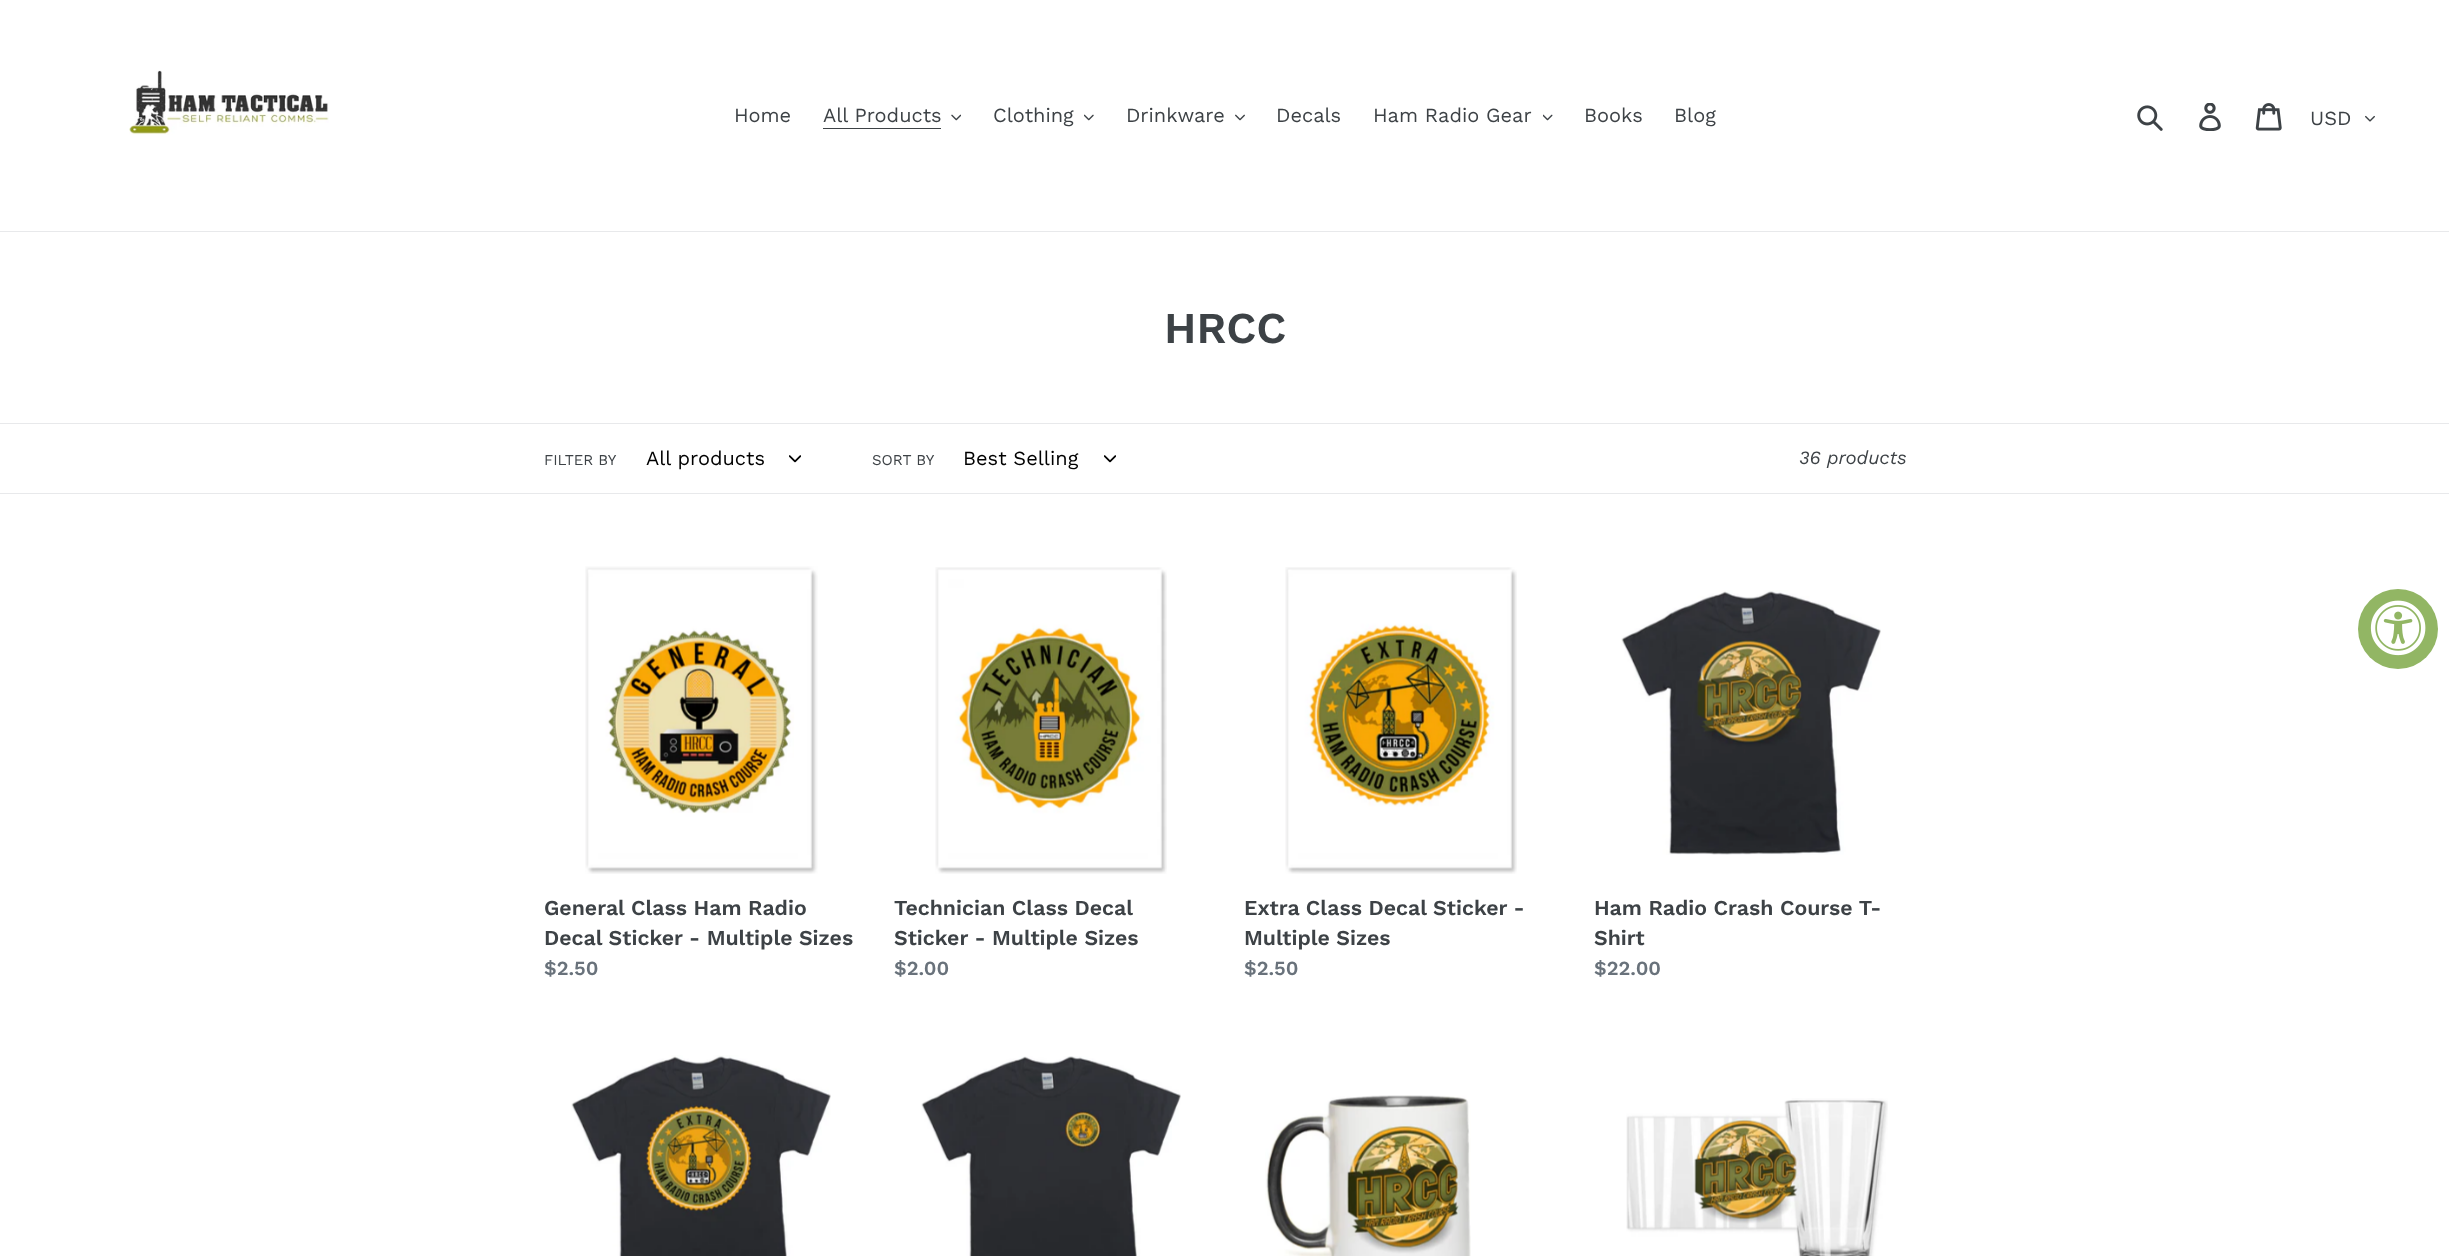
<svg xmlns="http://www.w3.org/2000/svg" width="2449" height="1256">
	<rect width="100%" height="100%" fill="#FFFFFF" />
	<rect x="0" y="231" width="2449" height="1" fill="#E8E9EB" />
	<image x="129" y="70" width="200" height="65" href="assets/img1.png" />
	<g font-family="Work Sans" font-size="20" fill="#3D4246">
		<text x="734" y="122">Home</text>
		<text x="823" y="122">All Products</text>
	</g>
	<rect x="823" y="128" width="118" height="1" fill="#3D4246" />
	<image x="951" y="114" width="10" height="7" href="assets/img2.png" />
	<text x="993" y="122" font-family="Work Sans" font-size="20" fill="#3D4246">Clothing</text>
	<image x="1084" y="114" width="10" height="7" href="assets/img3.png" />
	<text x="1126" y="122" font-family="Work Sans" font-size="20" fill="#3D4246">Drinkware</text>
	<image x="1235" y="114" width="10" height="7" href="assets/img4.png" />
	<g font-family="Work Sans" font-size="20" fill="#3D4246">
		<text x="1276" y="122">Decals</text>
		<text x="1373" y="122">Ham Radio Gear</text>
	</g>
	<image x="1543" y="114" width="10" height="7" href="assets/img5.png" />
	<g font-family="Work Sans" font-size="20" fill="#3D4246">
		<text x="1584" y="122">Books</text>
		<text x="1674" y="122">Blog</text>
	</g>
	<image x="2137" y="105" width="26" height="26" href="assets/img6.png" />
	<image x="2199" y="103" width="22" height="28" href="assets/img7.png" />
	<image x="2255" y="103" width="27" height="28" href="assets/img8.png" />
	<text x="2310" y="125" font-family="Work Sans" font-size="20" fill="#3D4246">USD</text>
	<image x="2365" y="115" width="10" height="7" href="assets/img9.png" />
	<text x="1164" y="343" font-family="Work Sans" font-size="44" font-weight="600" fill="#3D4246">HRCC</text>
	<rect x="0" y="423" width="2449" height="1" fill="#E8E9EB" />
	<rect x="0" y="493" width="2449" height="1" fill="#E8E9EB" />
	<text x="544" y="465" font-family="Work Sans" font-size="15" fill="#3D4246">FILTER BY</text>
	<text x="646" y="465" font-family="Work Sans" font-size="20" fill="#000000">All products</text>
	<image x="789" y="455" width="12" height="8" href="assets/img10.png" />
	<text x="872" y="465" font-family="Work Sans" font-size="15" fill="#3D4246">SORT BY</text>
	<text x="963" y="465" font-family="Work Sans" font-size="20" fill="#000000">Best Selling</text>
	<image x="1104" y="455" width="12" height="8" href="assets/img10.png" />
	<text x="1799" y="464" font-family="Work Sans" font-size="18.75" font-style="italic" fill="#3D4246">36 products</text>
	<image x="585" y="566" width="233" height="308" href="assets/img11.png" />
	<g font-family="Work Sans" font-size="21.25" font-weight="600" fill="#3D4246">
		<text x="544" y="915">General Class Ham Radio</text>
		<text x="544" y="945">Decal Sticker - Multiple Sizes</text>
	</g>
	<text x="544" y="975" font-family="Work Sans" font-size="20" font-weight="600" fill="#69727B">$2.50</text>
	<image x="935" y="567" width="232" height="307" href="assets/img12.png" />
	<g font-family="Work Sans" font-size="21.25" font-weight="600" fill="#3D4246">
		<text x="894" y="915">Technician Class Decal</text>
		<text x="894" y="945">Sticker - Multiple Sizes</text>
	</g>
	<text x="894" y="975" font-family="Work Sans" font-size="20" font-weight="600" fill="#69727B">$2.00</text>
	<image x="1285" y="567" width="232" height="307" href="assets/img13.png" />
	<g font-family="Work Sans" font-size="21.25" font-weight="600" fill="#3D4246">
		<text x="1244" y="915">Extra Class Decal Sticker -</text>
		<text x="1244" y="945">Multiple Sizes</text>
	</g>
	<text x="1244" y="975" font-family="Work Sans" font-size="20" font-weight="600" fill="#69727B">$2.50</text>
	<image x="1621" y="590" width="260" height="265" href="assets/img14.png" />
	<g font-family="Work Sans" font-size="21.25" font-weight="600" fill="#3D4246">
		<text x="1594" y="915">Ham Radio Crash Course T-</text>
		<text x="1594" y="945">Shirt</text>
	</g>
	<text x="1594" y="975" font-family="Work Sans" font-size="20" font-weight="600" fill="#69727B">$22.00</text>
	<image x="571" y="1055" width="260" height="201" href="assets/img15.png" />
	<image x="921" y="1056" width="260" height="200" href="assets/img16.png" />
	<image x="1265" y="1095" width="206" height="161" href="assets/img17.png" />
	<image x="1626" y="1098" width="262" height="158" href="assets/img18.png" />
	<circle cx="2398" cy="629" r="40" fill="#92B664" />
	<image x="2370" y="600" width="56" height="56" href="assets/img19.png" />
</svg>
